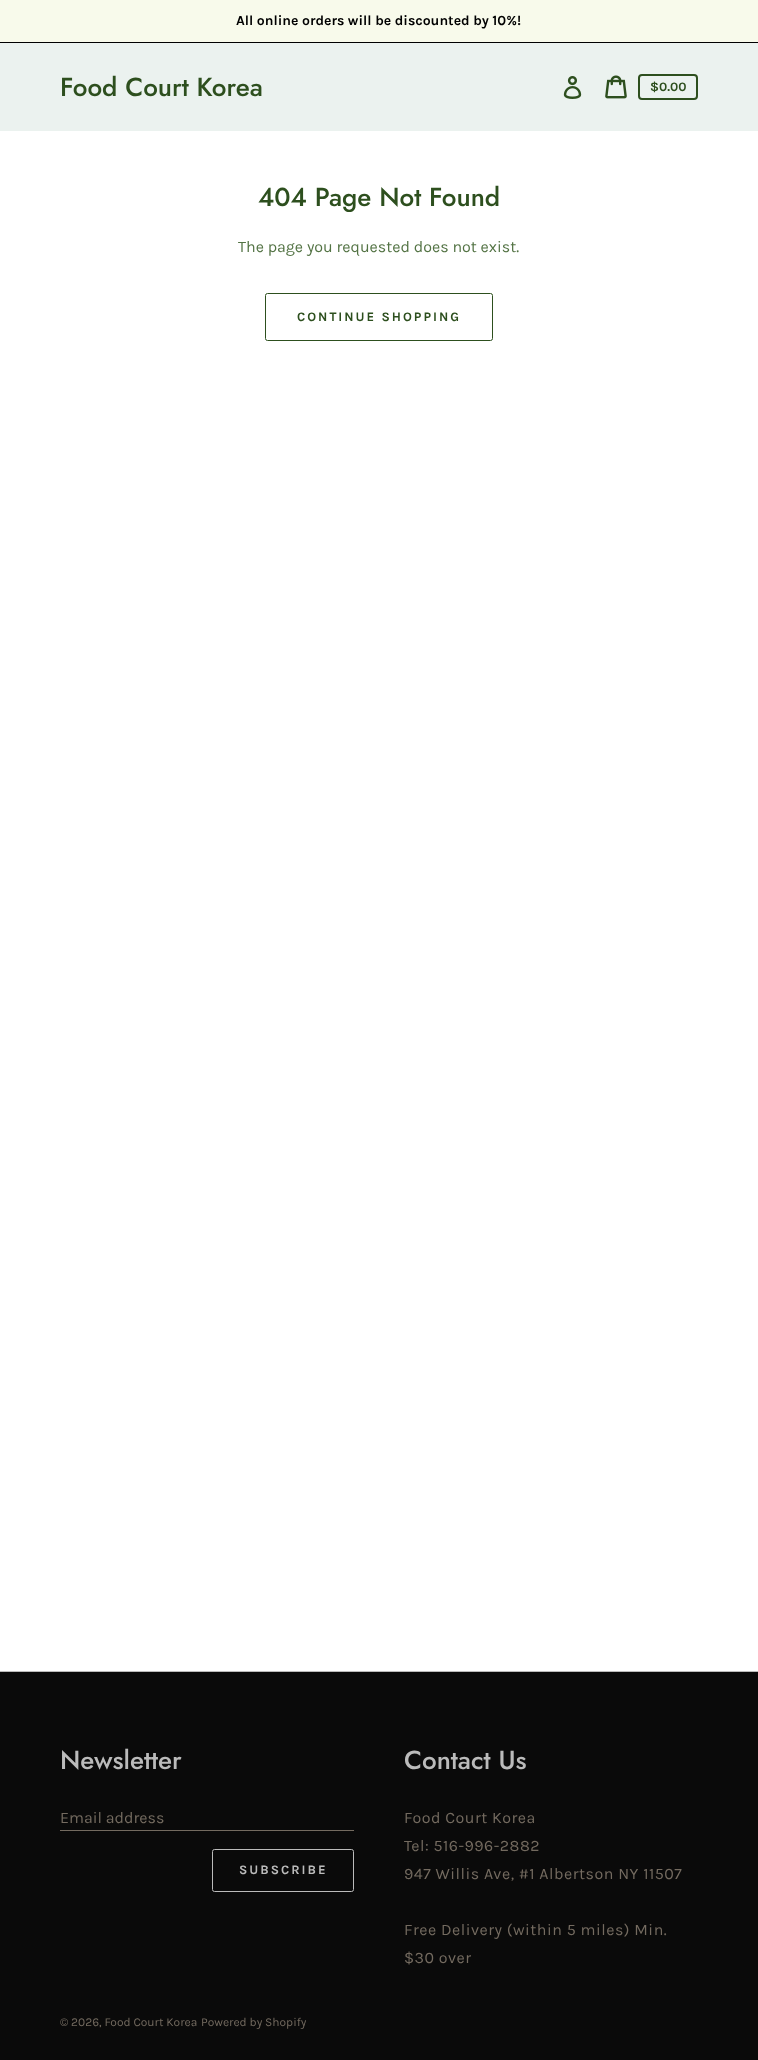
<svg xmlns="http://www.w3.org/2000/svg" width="758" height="2060">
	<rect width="100%" height="100%" fill="#FFFFFF" />
	<rect x="0" y="0" width="758" height="42" fill="#F8FAEB" />
	<rect x="0" y="42" width="758" height="1" fill="#000000" />
	<text x="236" y="25" font-family="Karla" font-size="14" font-weight="700" fill="#000000">All online orders will be discounted by 10%!</text>
	<rect x="0" y="43" width="758" height="88" fill="#EBF2EF" />
	<text x="60" y="96" font-family="Jost" font-size="26" font-weight="500" fill="#2D4F1E">Food Court Korea</text>
	<image x="563" y="76" width="19" height="23" href="assets/img1.png" />
	<image x="605" y="75" width="22" height="24" href="assets/img2.png" />
	<rect x="639" y="75" width="58" height="24" rx="3" fill="none" stroke="#2D4F1E" stroke-width="2" />
	<text x="650" y="91" font-family="Karla" font-size="13" font-weight="700" fill="#2D4F1E">$0.00</text>
	<text x="258" y="206" font-family="Jost" font-size="26" font-weight="500" fill="#2D4F1E">404 Page Not Found</text>
	<text x="238" y="252" font-family="Karla" font-size="16" fill="#537344">The page you requested does not exist.</text>
	<rect x="265.5" y="293.5" width="227" height="47" rx="2" fill="none" stroke="#2D4F1E" />
	<text x="297" y="321" font-family="Karla" font-size="13" font-weight="700" letter-spacing="2" fill="#2D4F1E">CONTINUE SHOPPING</text>
	<rect x="0" y="1672" width="758" height="388" fill="#0A0A0A" />
	<rect x="0" y="1671" width="758" height="1" fill="#BBBBBB" />
	<text x="60" y="1769" font-family="Jost" font-size="26" font-weight="500" fill="#BBBBBB">Newsletter</text>
	<text x="60" y="1823" font-family="Karla" font-size="16" fill="#746B60">Email address</text>
	<rect x="60" y="1830" width="294" height="1" fill="#746B60" />
	<rect x="212.5" y="1849.5" width="141" height="42" rx="2" fill="none" stroke="#BBBBBB" />
	<text x="239" y="1874" font-family="Karla" font-size="13" font-weight="700" letter-spacing="2" fill="#BBBBBB">SUBSCRIBE</text>
	<text x="404" y="1769" font-family="Jost" font-size="26" font-weight="500" fill="#BBBBBB">Contact Us</text>
	<g font-family="Karla" font-size="16" letter-spacing="0.5" fill="#746B60">
		<text x="404" y="1823">Food Court Korea</text>
		<text x="404" y="1851">Tel: 516-996-2882</text>
		<text x="404" y="1879">947 Willis Ave, #1 Albertson NY 11507</text>
		<text x="404" y="1935">Free Delivery (within 5 miles) Min.</text>
		<text x="404" y="1963">$30 over</text>
	</g>
	<g font-family="Karla" font-size="12" fill="#746B60">
		<text x="60" y="2026">© 2026, Food Court Korea</text>
		<text x="201" y="2026">Powered by Shopify</text>
	</g>
</svg>
